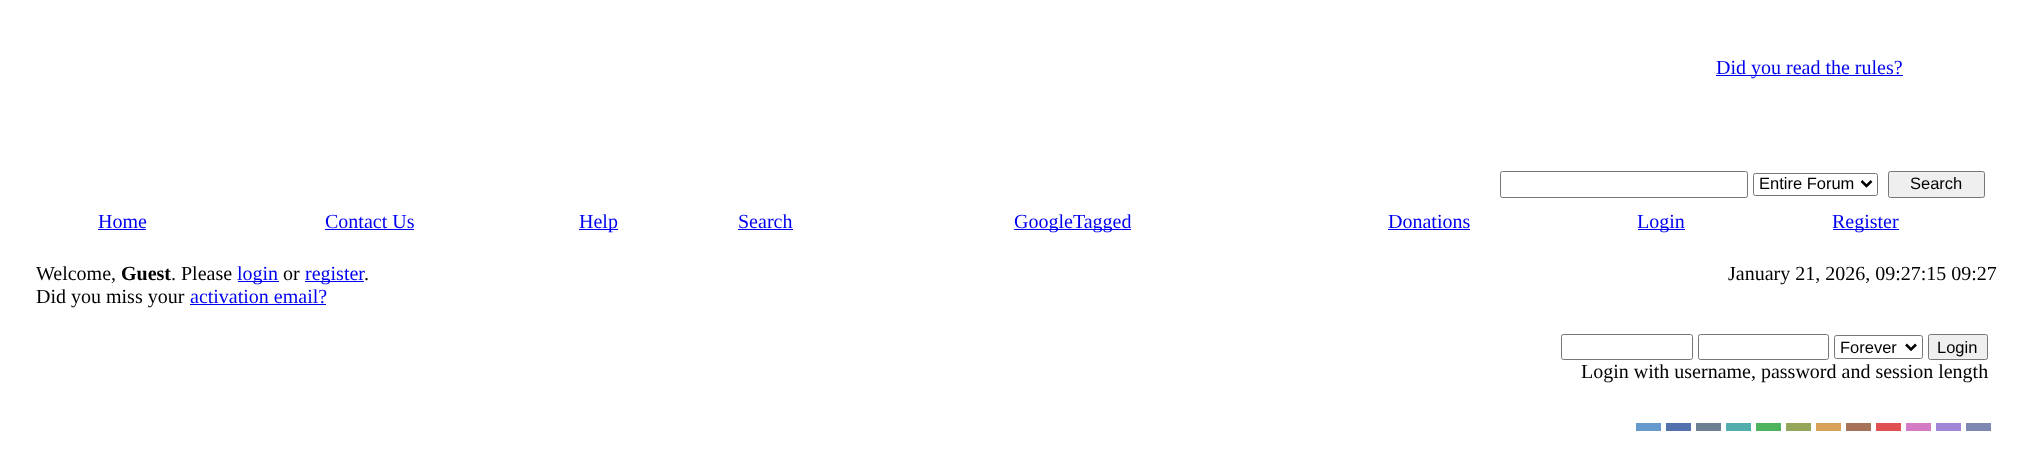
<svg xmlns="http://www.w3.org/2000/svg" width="2039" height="460">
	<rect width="100%" height="100%" fill="#FFFFFF" />
	<rect x="1716" y="75" width="187" height="1" fill="#0000EE" />
	<text x="1716" y="74" font-family="Liberation Serif" font-size="20" fill="#0000EE">Did you read the rules?</text>
	<rect x="1500.5" y="171.5" width="247" height="26" rx="2" fill="none" stroke="#767676" />
	<rect x="1753.5" y="173.5" width="124" height="22" rx="2" fill="none" stroke="#767676" />
	<path d="M1861.5 181L1866.5 186L1871.5 181" fill="none" stroke="#000000" stroke-width="2.5" />
	<text x="1759" y="189" font-family="Liberation Sans" font-size="16.5" fill="#000000">Entire Forum</text>
	<rect x="1888.5" y="171.5" width="96" height="26" rx="2" fill="#EFEFEF" stroke="#767676" />
	<text x="1910" y="189" font-family="Liberation Sans" font-size="16.5" fill="#000000">Search</text>
	<text x="98" y="228" font-family="Liberation Serif" font-size="20" fill="#0000EE">Home</text>
	<rect x="98" y="229" width="48" height="1" fill="#0000EE" />
	<text x="325" y="228" font-family="Liberation Serif" font-size="20" fill="#0000EE">Contact Us</text>
	<rect x="325" y="229" width="89" height="1" fill="#0000EE" />
	<rect x="579" y="229" width="39" height="1" fill="#0000EE" />
	<g font-family="Liberation Serif" font-size="20" fill="#0000EE">
		<text x="579" y="228">Help</text>
		<text x="738" y="228">Search</text>
	</g>
	<rect x="738" y="229" width="55" height="1" fill="#0000EE" />
	<rect x="1014" y="229" width="117" height="1" fill="#0000EE" />
	<g font-family="Liberation Serif" font-size="20" fill="#0000EE">
		<text x="1014" y="228">GoogleTagged</text>
		<text x="1388" y="228">Donations</text>
	</g>
	<rect x="1388" y="229" width="82" height="1" fill="#0000EE" />
	<rect x="1638" y="229" width="47" height="1" fill="#0000EE" />
	<text x="1637" y="228" font-family="Liberation Serif" font-size="20" fill="#0000EE">Login</text>
	<rect x="1833" y="229" width="66" height="1" fill="#0000EE" />
	<text x="1832" y="228" font-family="Liberation Serif" font-size="20" fill="#0000EE">Register</text>
	<text x="36" y="280" font-family="Liberation Serif" font-size="20" fill="#000000">Welcome,</text>
	<text x="121" y="280" font-family="Liberation Serif" font-size="20" font-weight="700" fill="#000000">Guest</text>
	<text x="171" y="280" font-family="Liberation Serif" font-size="20" fill="#000000">. Please</text>
	<rect x="238" y="281" width="41" height="1" fill="#0000EE" />
	<text x="237" y="280" font-family="Liberation Serif" font-size="20" fill="#0000EE">login</text>
	<text x="283" y="280" font-family="Liberation Serif" font-size="20" fill="#000000">or</text>
	<rect x="305" y="281" width="59" height="1" fill="#0000EE" />
	<text x="305" y="280" font-family="Liberation Serif" font-size="20" fill="#0000EE">register</text>
	<g font-family="Liberation Serif" font-size="20" fill="#000000">
		<text x="364" y="280">.</text>
		<text x="36" y="303">Did you miss your</text>
	</g>
	<text x="190" y="303" font-family="Liberation Serif" font-size="20" fill="#0000EE">activation email?</text>
	<rect x="190" y="304" width="136" height="1" fill="#0000EE" />
	<text x="1728" y="280" font-family="Liberation Serif" font-size="20" fill="#000000">January 21, 2026, 09:27:15 09:27</text>
	<rect x="1561.5" y="334.5" width="131" height="25" rx="2" fill="none" stroke="#767676" />
	<rect x="1698.5" y="334.5" width="130" height="25" rx="2" fill="none" stroke="#767676" />
	<rect x="1834.5" y="335.5" width="88" height="23" rx="2" fill="none" stroke="#767676" />
	<path d="M1906 344.5L1911 349.5L1916 344.5" fill="none" stroke="#000000" stroke-width="2.5" />
	<text x="1840" y="353" font-family="Liberation Sans" font-size="16.5" fill="#000000">Forever</text>
	<rect x="1928.5" y="334.5" width="59" height="25" rx="2" fill="#EFEFEF" stroke="#767676" />
	<text x="1937" y="353" font-family="Liberation Sans" font-size="16.5" fill="#000000">Login</text>
	<text x="1581" y="378" font-family="Liberation Serif" font-size="20" fill="#000000">Login with username, password and session length</text>
	<rect x="1636" y="423" width="25" height="8" fill="#6699CC" />
	<rect x="1666" y="423" width="25" height="8" fill="#5371AD" />
	<rect x="1696" y="423" width="25" height="8" fill="#6C7F93" />
	<rect x="1726" y="423" width="25" height="8" fill="#53ADAD" />
	<rect x="1756" y="423" width="25" height="8" fill="#4DB45D" />
	<rect x="1786" y="423" width="25" height="8" fill="#93A659" />
	<rect x="1816" y="423" width="25" height="8" fill="#D8A259" />
	<rect x="1846" y="423" width="25" height="8" fill="#A67259" />
	<rect x="1876" y="423" width="25" height="8" fill="#E15050" />
	<rect x="1906" y="423" width="25" height="8" fill="#D47BC5" />
	<rect x="1936" y="423" width="25" height="8" fill="#A185D6" />
	<rect x="1966" y="423" width="25" height="8" fill="#7F88B2" />
</svg>
